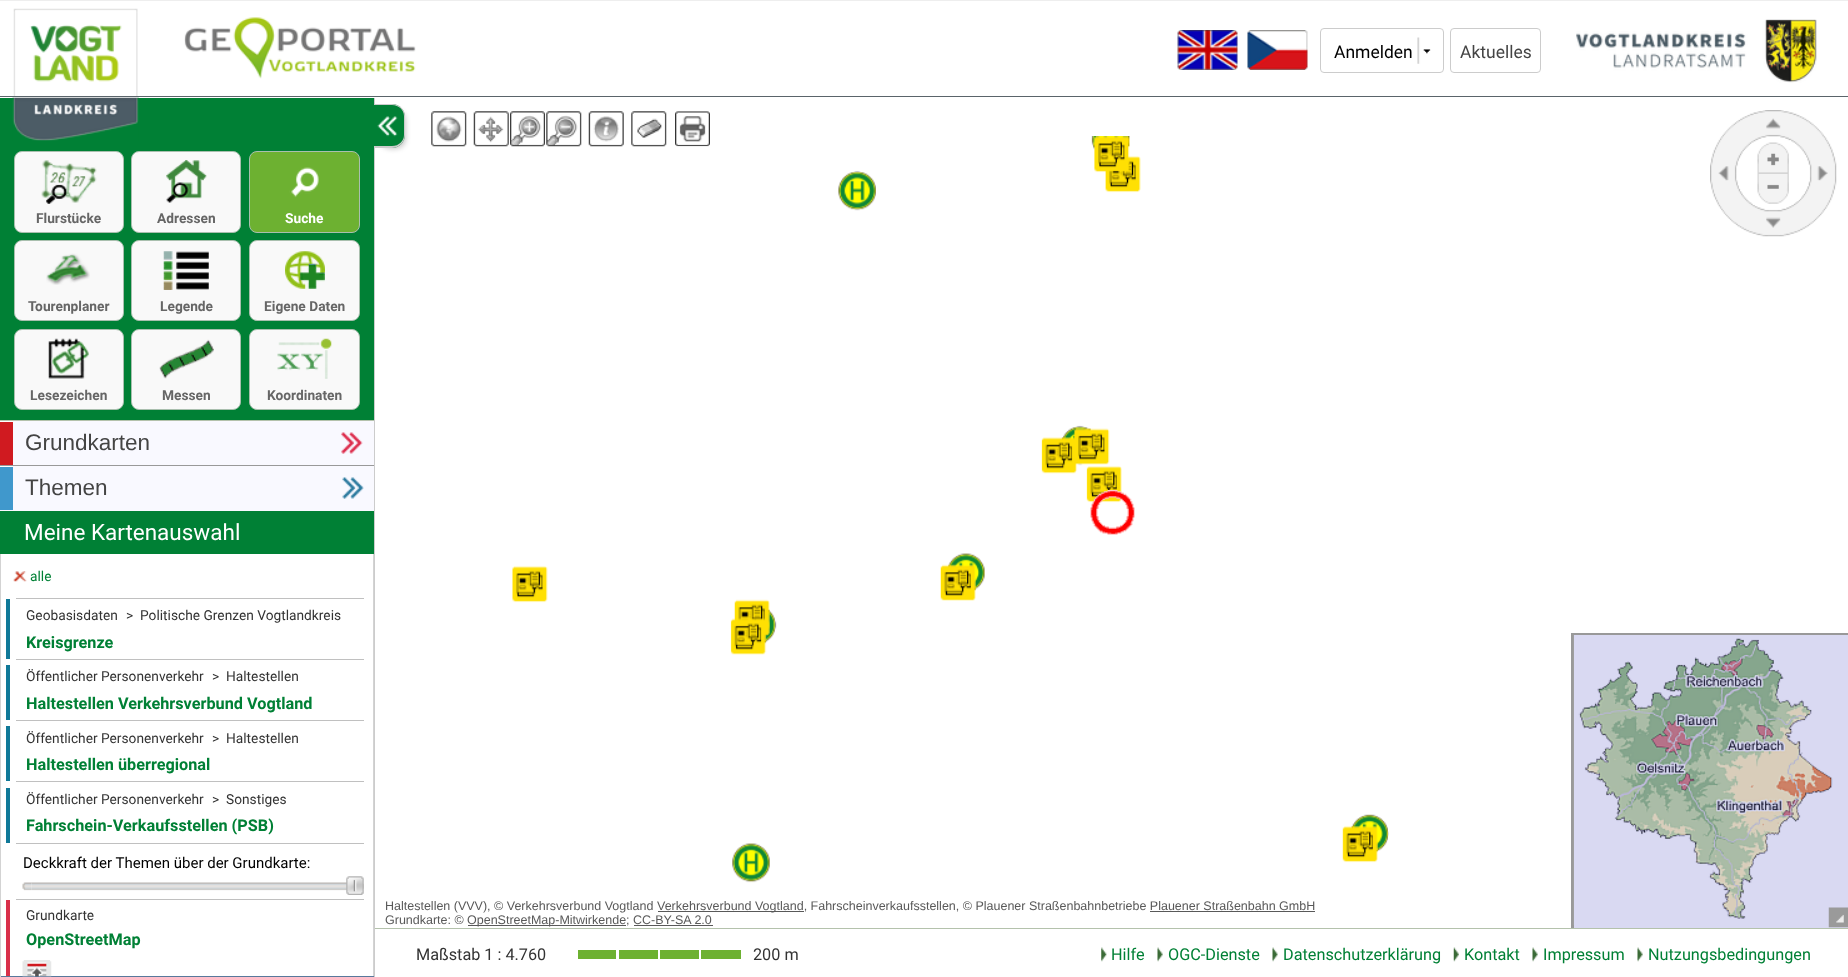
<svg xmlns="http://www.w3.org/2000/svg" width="1848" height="977">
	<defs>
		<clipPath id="clip1"><rect x="1574" y="635" width="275" height="293" /></clipPath>
	</defs>
	<rect width="100%" height="100%" fill="#FFFFFF" />
	<rect x="0" y="0" width="1848" height="1" fill="#EEEEEE" />
	<rect x="0" y="96" width="1848" height="1" fill="#5A646A" />
	<image x="13" y="8" width="125" height="88" href="assets/img1.png" />
	<image x="184" y="17" width="232" height="62" href="assets/img2.png" />
	<image x="1177" y="30" width="61" height="40" href="assets/img3.png" />
	<image x="1247" y="30" width="61" height="40" href="assets/img4.png" />
	<rect x="1320.5" y="28.5" width="123" height="44" rx="3.5" fill="none" stroke="#CCCCCC" />
	<image x="1417" y="37" width="14" height="27" href="assets/img5.png" />
	<text x="1334" y="58" font-family="Roboto" font-size="17.5" fill="#000000">Anmelden</text>
	<rect x="1450.5" y="28.5" width="90" height="44" rx="3.5" fill="none" stroke="#CCCCCC" />
	<text x="1460" y="58" font-family="Roboto" font-size="17.5" fill="#444444">Aktuelles</text>
	<image x="1576" y="19" width="241" height="64" href="assets/img6.png" />
	<rect x="374" y="98" width="1" height="879" fill="#CCCCCC" />
	<rect x="0" y="98" width="374" height="322" fill="#008035" />
	<image x="12" y="97" width="127" height="44" href="assets/img7.png" />
	<rect x="0" y="420" width="374" height="1" fill="#B4C2AC" />
	<rect x="14.5" y="151.5" width="109" height="81" rx="7.5" fill="#F9F9F9" stroke="#A9BFAE" />
	<image x="41" y="160" width="56" height="44" href="assets/img8.png" />
	<text x="36" y="223" font-family="Roboto" font-size="13.75" font-weight="700" fill="#666666">Flurstücke</text>
	<rect x="131.5" y="151.5" width="109" height="81" rx="7.5" fill="#F9F9F9" stroke="#A9BFAE" />
	<image x="166" y="160" width="41" height="43" href="assets/img9.png" />
	<text x="157" y="223" font-family="Roboto" font-size="13.75" font-weight="700" fill="#666666">Adressen</text>
	<rect x="249.5" y="151.5" width="110" height="81" rx="7.5" fill="#6DB131" stroke="#A9BFAE" />
	<image x="289" y="167" width="31" height="31" href="assets/img10.png" />
	<text x="285" y="223" font-family="Roboto" font-size="13.75" font-weight="700" fill="#FFFFFF">Suche</text>
	<rect x="14.5" y="240.5" width="109" height="80" rx="7.5" fill="#F9F9F9" stroke="#A9BFAE" />
	<image x="46" y="253" width="44" height="32" href="assets/img11.png" />
	<text x="28" y="311" font-family="Roboto" font-size="13.75" font-weight="700" fill="#666666">Tourenplaner</text>
	<rect x="131.5" y="240.5" width="109" height="80" rx="7.5" fill="#F9F9F9" stroke="#A9BFAE" />
	<image x="163" y="251" width="46" height="39" href="assets/img12.png" />
	<text x="160" y="311" font-family="Roboto" font-size="13.75" font-weight="700" fill="#666666">Legende</text>
	<rect x="249.5" y="240.5" width="110" height="80" rx="7.5" fill="#F9F9F9" stroke="#A9BFAE" />
	<image x="285" y="251" width="40" height="38" href="assets/img13.png" />
	<text x="264" y="311" font-family="Roboto" font-size="13.75" font-weight="700" fill="#666666">Eigene Daten</text>
	<rect x="14.5" y="329.5" width="109" height="80" rx="7.5" fill="#F9F9F9" stroke="#A9BFAE" />
	<image x="48" y="338" width="41" height="41" href="assets/img14.png" />
	<text x="30" y="400" font-family="Roboto" font-size="13.75" font-weight="700" fill="#666666">Lesezeichen</text>
	<rect x="131.5" y="329.5" width="109" height="80" rx="7.5" fill="#F9F9F9" stroke="#A9BFAE" />
	<image x="159" y="339" width="55" height="40" href="assets/img15.png" />
	<text x="162" y="400" font-family="Roboto" font-size="13.75" font-weight="700" fill="#666666">Messen</text>
	<rect x="249.5" y="329.5" width="110" height="80" rx="7.5" fill="#F9F9F9" stroke="#A9BFAE" />
	<image x="277" y="338" width="55" height="41" href="assets/img16.png" />
	<text x="267" y="400" font-family="Roboto" font-size="13.75" font-weight="700" fill="#666666">Koordinaten</text>
	<rect x="0" y="465" width="374" height="1" fill="#999999" />
	<rect x="13" y="421" width="361" height="44" fill="#F9F9FF" />
	<rect x="0" y="422" width="13" height="43" fill="#D01A20" />
	<text x="25" y="450" font-family="Liberation Sans" font-size="22.5" fill="#444444">Grundkarten</text>
	<rect x="0" y="510" width="374" height="1" fill="#F9F9FF" />
	<rect x="13" y="466" width="361" height="44" fill="#F9F9FF" />
	<rect x="0" y="467" width="13" height="43" fill="#4098CC" />
	<text x="25" y="495" font-family="Liberation Sans" font-size="22.5" fill="#444444">Themen</text>
	<rect x="373" y="554" width="1" height="423" fill="#D3D3D3" />
	<rect x="0" y="976" width="374" height="1" fill="#58789C" />
	<rect x="16" y="598" width="348" height="1" fill="#C0C0C0" />
	<rect x="16" y="659" width="348" height="1" fill="#C0C0C0" />
	<text x="140" y="620" font-family="Roboto" font-size="13.75" fill="#333333">Politische Grenzen Vogtlandkreis</text>
	<rect x="16" y="720" width="348" height="1" fill="#C0C0C0" />
	<rect x="16" y="781" width="348" height="1" fill="#C0C0C0" />
	<rect x="16" y="843" width="348" height="1" fill="#C0C0C0" />
	<rect x="16" y="899" width="348" height="1" fill="#C0C0C0" />
	<image x="363" y="883" width="1" height="6" href="assets/img19.png" />
	<image x="22" y="882" width="10" height="9" href="assets/img18.png" />
	<image x="31" y="882" width="316" height="9" href="assets/img20.png" />
	<image x="346" y="876" width="18" height="19" href="assets/img21.png" />
	<image x="512" y="136" width="877" height="747" href="assets/img23.png" />
	<image x="1090" y="490" width="45" height="45" href="assets/img24.png" />
	<rect x="1571" y="633" width="277" height="2" fill="#999999" />
	<rect x="1571" y="633" width="3" height="295" fill="#999999" />
	<image x="1573" y="635" width="275" height="290" href="assets/img25.png" />
	<image x="431" y="111" width="36" height="36" href="assets/img27.png" />
	<image x="473" y="111" width="36" height="36" href="assets/img28.png" />
	<image x="510" y="111" width="35" height="36" href="assets/img29.png" />
	<image x="546" y="111" width="36" height="36" href="assets/img30.png" />
	<image x="588" y="111" width="36" height="36" href="assets/img31.png" />
	<image x="631" y="111" width="36" height="36" href="assets/img32.png" />
	<text x="385" y="910" font-family="Liberation Sans" font-size="12.5" fill="#595959">Haltestellen (VVV), © Verkehrsverbund Vogtland</text>
	<rect x="658" y="911" width="146" height="1" fill="#595959" />
	<text x="657" y="910" font-family="Liberation Sans" font-size="12.5" fill="#595959">Verkehrsverbund Vogtland, Fahrscheinverkaufsstellen, © Plauener Straßenbahnbetriebe Plauener Straßenbahn GmbH</text>
	<rect x="1150" y="911" width="165" height="1" fill="#595959" />
	<text x="385" y="924" font-family="Liberation Sans" font-size="12.5" fill="#595959">Grundkarte: ©</text>
	<rect x="468" y="925" width="158" height="1" fill="#595959" />
	<text x="467" y="924" font-family="Liberation Sans" font-size="12.5" fill="#595959">OpenStreetMap-Mitwirkende; CC-BY-SA 2.0</text>
	<rect x="634" y="925" width="79" height="1" fill="#595959" />
	<g clip-path="url(#clip1)">
		<rect x="949" y="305" width="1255" height="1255" fill="none" stroke="#6666CC" stroke-opacity="0.25" stroke-width="1250" />
	</g>
	<rect x="0" y="511" width="374" height="43" fill="#008035" />
	<text x="24" y="540" font-family="Roboto" font-size="22.5" fill="#FFFFFF">Meine Kartenauswahl</text>
	<rect x="0" y="554" width="1" height="423" fill="#D3D3D3" />
	<image x="13" y="571" width="14" height="11" href="assets/img17.png" />
	<text x="30" y="581" font-family="Roboto" font-size="13.75" fill="#008035">alle</text>
	<rect x="6" y="599" width="4" height="60" fill="#107998" />
	<g font-family="Roboto" font-size="13.75" fill="#333333">
		<text x="26" y="620">Geobasisdaten</text>
		<text x="126" y="620">&gt;</text>
	</g>
	<text x="26" y="648" font-family="Roboto" font-size="16.25" font-weight="700" fill="#008035">Kreisgrenze</text>
	<rect x="6" y="665" width="4" height="55" fill="#107998" />
	<g font-family="Roboto" font-size="13.75" fill="#333333">
		<text x="26" y="681">Öffentlicher Personenverkehr</text>
		<text x="212" y="681">&gt;</text>
		<text x="226" y="681">Haltestellen</text>
	</g>
	<text x="26" y="709" font-family="Roboto" font-size="16.25" font-weight="700" fill="#008035">Haltestellen Verkehrsverbund Vogtland</text>
	<rect x="6" y="726" width="4" height="55" fill="#107998" />
	<g font-family="Roboto" font-size="13.75" fill="#333333">
		<text x="26" y="743">Öffentlicher Personenverkehr</text>
		<text x="212" y="743">&gt;</text>
		<text x="226" y="743">Haltestellen</text>
	</g>
	<text x="26" y="770" font-family="Roboto" font-size="16.25" font-weight="700" fill="#008035">Haltestellen überregional</text>
	<rect x="6" y="788" width="4" height="55" fill="#107998" />
	<g font-family="Roboto" font-size="13.75" fill="#333333">
		<text x="26" y="804">Öffentlicher Personenverkehr</text>
		<text x="212" y="804">&gt;</text>
		<text x="226" y="804">Sonstiges</text>
	</g>
	<text x="26" y="831" font-family="Roboto" font-size="16.25" font-weight="700" fill="#008035">Fahrschein-Verkaufsstellen (PSB)</text>
	<text x="23" y="868" font-family="Roboto" font-size="15" fill="#000000">Deckkraft der Themen über der Grundkarte:</text>
	<rect x="6" y="900" width="4" height="76" fill="#D9304A" />
	<text x="26" y="920" font-family="Roboto" font-size="13.75" fill="#333333">Grundkarte</text>
	<text x="26" y="945" font-family="Roboto" font-size="16.25" font-weight="700" fill="#008035">OpenStreetMap</text>
	<image x="22" y="960" width="30" height="17" href="assets/img22.png" />
	<image x="1828" y="907" width="20" height="21" href="assets/img26.png" />
	<image x="1710" y="110" width="127" height="127" href="assets/img33.png" />
	<image x="1766" y="118" width="15" height="11" href="assets/img34.png" />
	<image x="1718" y="166" width="11" height="15" href="assets/img35.png" />
	<image x="1817" y="166" width="11" height="15" href="assets/img36.png" />
	<image x="1766" y="217" width="15" height="11" href="assets/img37.png" />
	<image x="1757" y="142" width="32" height="62" href="assets/img38.png" />
	<image x="1767" y="153" width="12" height="13" href="assets/img39.png" />
	<image x="1767" y="184" width="12" height="5" href="assets/img40.png" />
	<rect x="375" y="928" width="1473" height="1" fill="#B4C2AC" />
	<text x="416" y="960" font-family="Roboto" font-size="16.25" fill="#333333">Maßstab 1 : 4.760</text>
	<rect x="578" y="950" width="38" height="9" fill="#6DB131" />
	<rect x="619" y="950" width="39" height="9" fill="#6DB131" />
	<rect x="660" y="950" width="39" height="9" fill="#6DB131" />
	<rect x="701" y="950" width="40" height="9" fill="#6DB131" />
	<text x="753" y="960" font-family="Roboto" font-size="16.25" fill="#333333">200 m</text>
	<image x="1101" y="947" width="6" height="15" href="assets/img41.png" />
	<text x="1111" y="960" font-family="Roboto" font-size="16.25" fill="#008035">Hilfe</text>
	<image x="1157" y="947" width="6" height="15" href="assets/img42.png" />
	<text x="1168" y="960" font-family="Roboto" font-size="16.25" fill="#008035">OGC-Dienste</text>
	<image x="1272" y="947" width="6" height="15" href="assets/img43.png" />
	<text x="1283" y="960" font-family="Roboto" font-size="16.25" fill="#008035">Datenschutzerklärung</text>
	<image x="1453" y="947" width="6" height="15" href="assets/img44.png" />
	<text x="1464" y="960" font-family="Roboto" font-size="16.25" fill="#008035">Kontakt</text>
	<image x="1532" y="947" width="6" height="15" href="assets/img42.png" />
	<text x="1543" y="960" font-family="Roboto" font-size="16.25" fill="#008035">Impressum</text>
	<image x="1637" y="947" width="6" height="15" href="assets/img42.png" />
	<text x="1648" y="960" font-family="Roboto" font-size="16.25" fill="#008035">Nutzungsbedingungen</text>
	<rect x="380" y="110" width="26" height="39" rx="10" fill="#000000" fill-opacity="0.2" filter="blur(2.5px)" />
	<path d="M374 104H392C399 104 405 110 405 117V135C405 142 399 148 392 148H374Z" fill="#008035" />
	<image x="377" y="116" width="21" height="21" href="assets/img45.png" />
	<path d="M374 104H392C399 104 405 109 405 116V135C405 142 399 148 392 148H374ZM374 105H392C399 105 404 110 404 116V135C404 141 399 146 392 146H374Z" fill="#CCCCCC" fill-rule="evenodd" />
	<image x="675" y="111" width="35" height="36" href="assets/img46.png" />
	<image x="341" y="432" width="22" height="22" href="assets/img47.png" />
	<image x="342" y="477" width="22" height="22" href="assets/img48.png" />
</svg>
